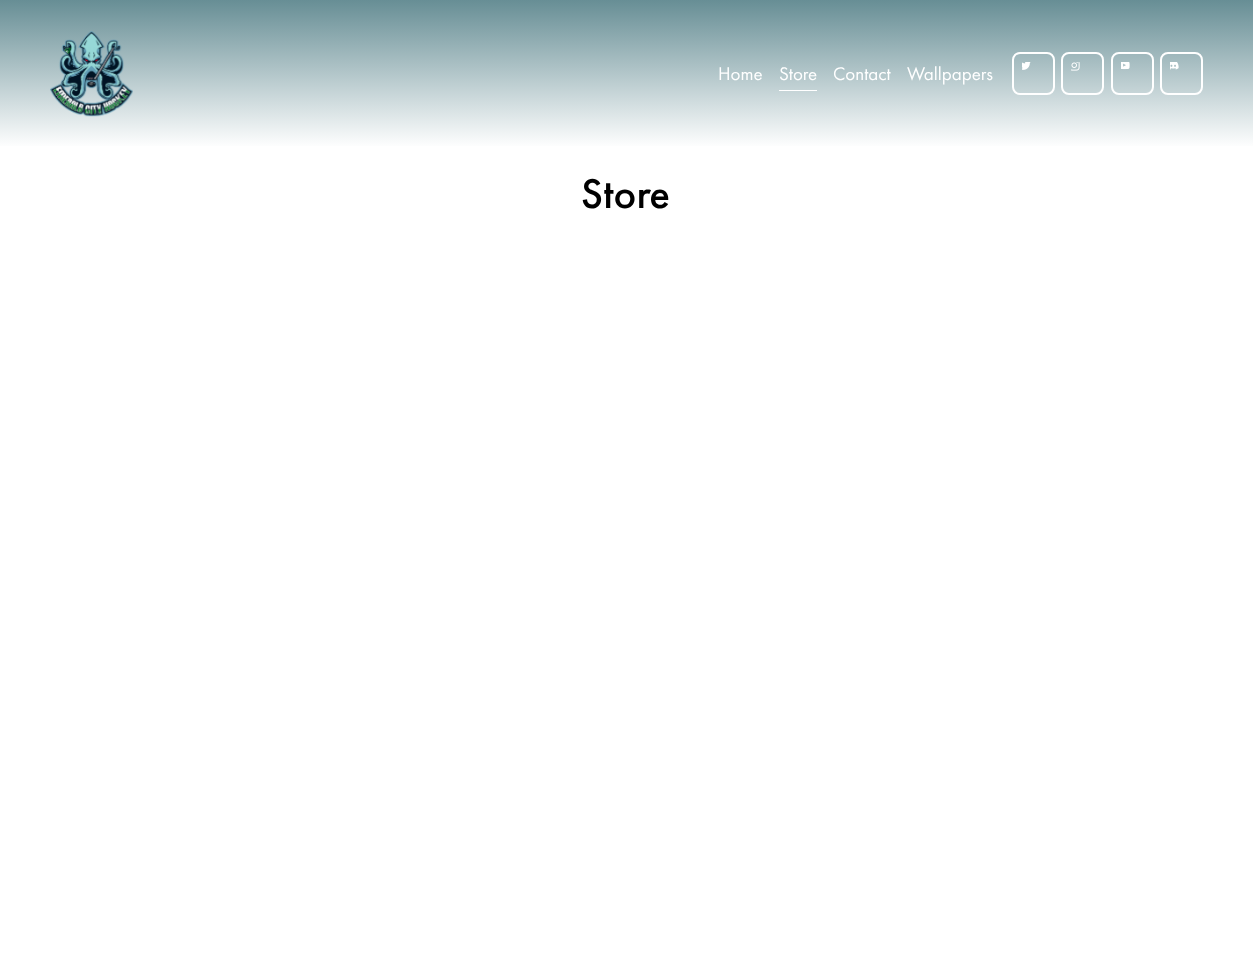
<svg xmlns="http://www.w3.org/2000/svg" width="1253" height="974">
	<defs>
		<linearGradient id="g1" gradientUnits="userSpaceOnUse" x1="627" y1="0" x2="627" y2="148"><stop offset="0" stop-color="#678E95" /><stop offset="1" stop-color="#FFFFFF" /></linearGradient>
	</defs>
	<rect width="100%" height="100%" fill="#FFFFFF" />
	<rect x="0" y="0" width="1253" height="146" fill="url(#g1)" />
	<image x="50" y="31" width="83" height="86" href="assets/img1.png" />
	<text x="718" y="80" font-family="Futura PT" font-size="19" fill="#FFFFFF">Home</text>
	<rect x="779" y="90" width="38" height="1" fill="#FFFFFF" />
	<g font-family="Futura PT" font-size="19" fill="#FFFFFF">
		<text x="779" y="80">Store</text>
		<text x="833" y="80">Contact</text>
		<text x="907" y="80">Wallpapers</text>
	</g>
	<rect x="1013" y="53" width="41" height="41" rx="7" fill="none" stroke="#FFFFFF" stroke-width="2" />
	<image x="1022" y="62" width="9" height="8" href="assets/img2.png" />
	<rect x="1062" y="53" width="41" height="41" rx="7" fill="none" stroke="#FFFFFF" stroke-width="2" />
	<image x="1071" y="62" width="9" height="9" href="assets/img3.png" />
	<rect x="1112" y="53" width="41" height="41" rx="7" fill="none" stroke="#FFFFFF" stroke-width="2" />
	<image x="1121" y="62" width="9" height="8" href="assets/img4.png" />
	<rect x="1161" y="53" width="41" height="41" rx="7" fill="none" stroke="#FFFFFF" stroke-width="2" />
	<image x="1170" y="62" width="9" height="8" href="assets/img5.png" />
	<text x="581" y="208" font-family="Futura PT" font-size="43" font-weight="500" fill="#000000">Store</text>
</svg>
